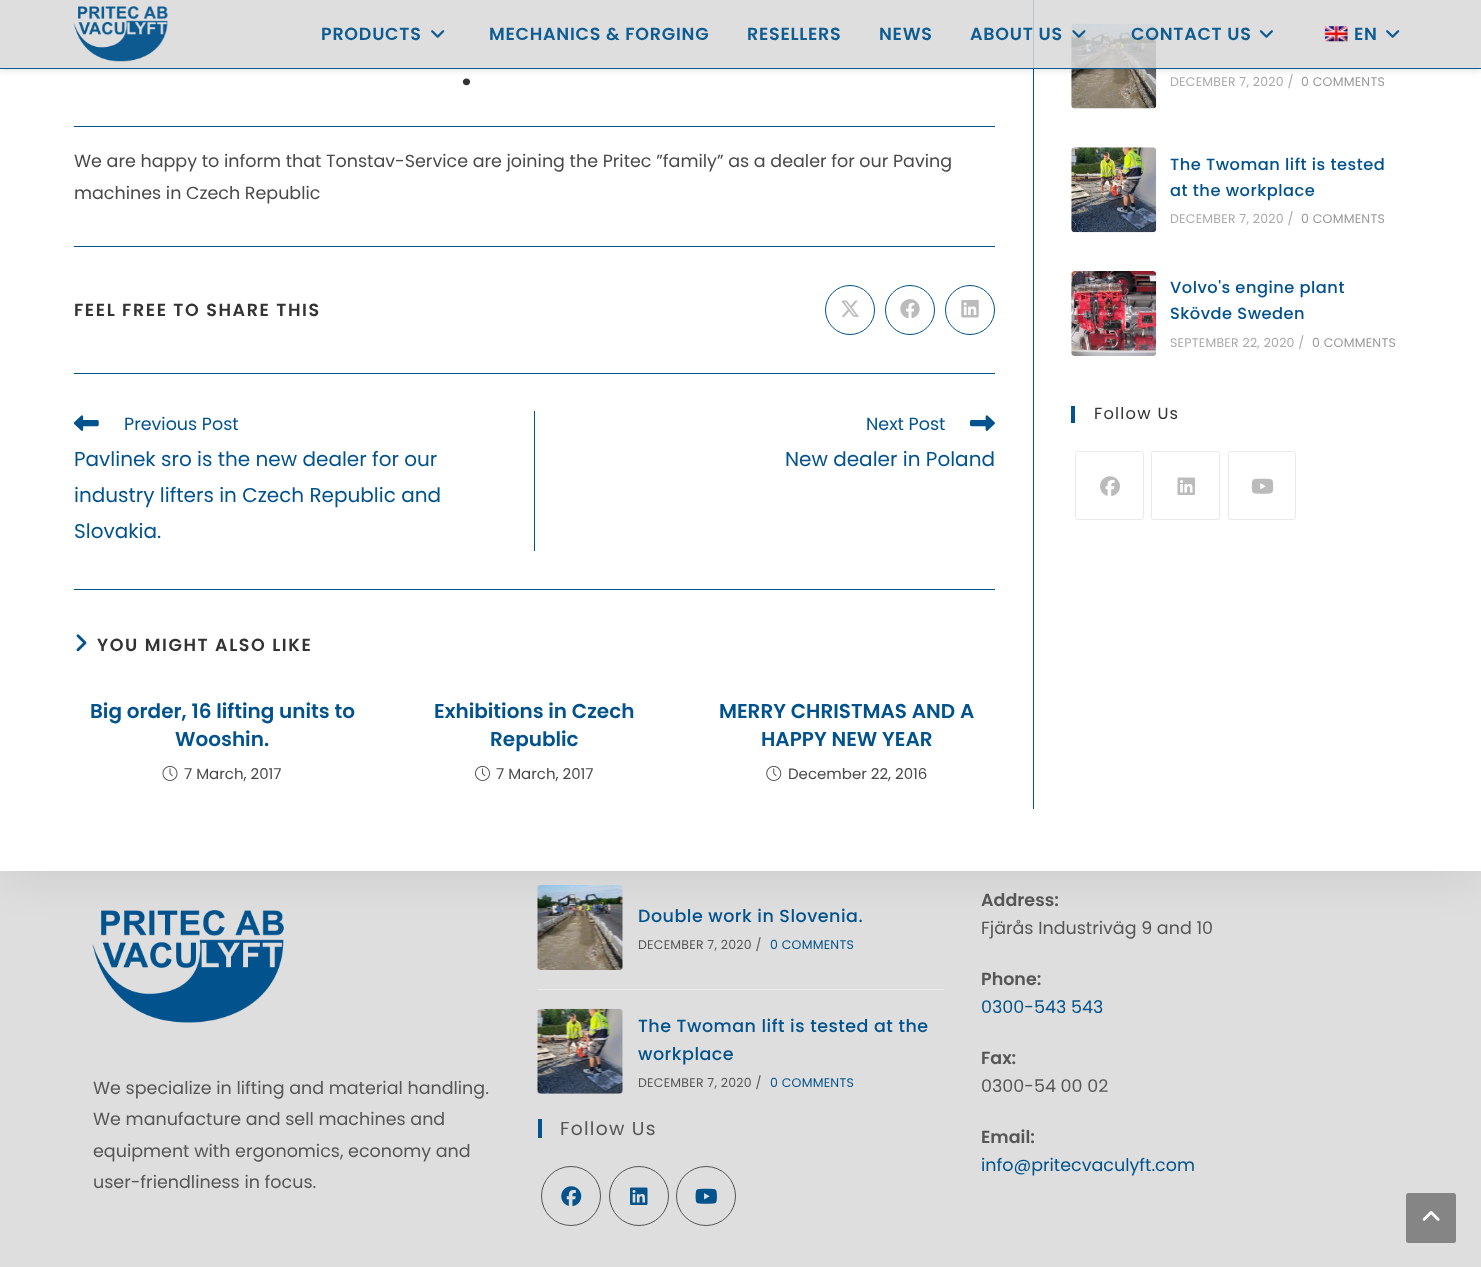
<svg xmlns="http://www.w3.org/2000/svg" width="1481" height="1267">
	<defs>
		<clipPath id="clip1"><path d="M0 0H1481V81H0ZM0 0H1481V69H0Z" clip-rule="evenodd" /></clipPath>
	</defs>
	<rect width="100%" height="100%" fill="#DEDEDE" />
	<image x="92" y="910" width="192" height="113" href="assets/img21.png" />
	<image x="537" y="885" width="86" height="85" href="assets/img22.png" />
	<rect x="0" y="-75" width="1481" height="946" fill="#000000" fill-opacity="0.1" filter="blur(25px)" />
	<rect x="0" y="0" width="1481" height="871" fill="#FFFFFF" />
	<rect x="1033" y="0" width="1" height="809" fill="#02538D" />
	<image x="1071" y="23" width="86" height="86" href="assets/img15.png" />
	<g clip-path="url(#clip1)">
		<rect x="0" y="3" width="1481" height="68" fill="#000000" fill-opacity="0.1" filter="blur(3px)" />
	</g>
	<rect x="0" y="0" width="1481" height="69" fill="#D8D8D8" fill-opacity="0.85" />
	<rect x="0" y="68" width="1481" height="1" fill="#02538D" fill-opacity="0.95" />
	<image x="73" y="6" width="95" height="56" href="assets/img1.png" />
	<text x="321" y="40" font-family="Poppins" font-size="17.5" font-weight="600" letter-spacing="0.75" fill="#0F5C93">PRODUCTS</text>
	<image x="431" y="30" width="14" height="8" href="assets/img2.png" />
	<g font-family="Poppins" font-size="17.5" font-weight="600" letter-spacing="0.75" fill="#0F5C93">
		<text x="489" y="40">MECHANICS &amp; FORGING</text>
		<text x="747" y="40">RESELLERS</text>
		<text x="879" y="40">NEWS</text>
		<text x="970" y="40">ABOUT US</text>
	</g>
	<image x="1072" y="30" width="14" height="8" href="assets/img3.png" />
	<text x="1131" y="40" font-family="Poppins" font-size="17.5" font-weight="600" letter-spacing="0.75" fill="#0F5C93">CONTACT US</text>
	<image x="1259" y="30" width="14" height="8" href="assets/img4.png" />
	<image x="1324" y="26" width="24" height="16" href="assets/img5.png" />
	<text x="1354" y="40" font-family="Poppins" font-size="17.5" font-weight="600" letter-spacing="0.75" fill="#0F5C93">EN</text>
	<image x="1386" y="30" width="14" height="8" href="assets/img2.png" />
	<rect x="74" y="126" width="921" height="1" fill="#02538D" />
	<text x="461" y="85" font-family="Poppins" font-size="42" font-weight="600" letter-spacing="0.75" fill="#333333">.</text>
	<g font-family="Poppins" font-size="17.5" fill="#4A4A4A">
		<text x="74" y="167">We are happy to inform that Tonstav-Service are joining the Pritec ”family” as a dealer for our Paving</text>
		<text x="74" y="199">machines in Czech Republic</text>
	</g>
	<rect x="74" y="246" width="921" height="1" fill="#02538D" />
	<text x="74" y="316" font-family="Poppins" font-size="17.5" font-weight="600" letter-spacing="1.6" fill="#333333">FEEL FREE TO SHARE THIS</text>
	<circle cx="850" cy="310" r="24.5" fill="none" stroke="#02538D" />
	<image x="841" y="300" width="18" height="17" href="assets/img6.png" />
	<circle cx="910" cy="310" r="24.5" fill="none" stroke="#02538D" />
	<image x="900" y="299" width="20" height="20" href="assets/img7.png" />
	<circle cx="970" cy="310" r="24.5" fill="none" stroke="#02538D" />
	<image x="961" y="300" width="18" height="18" href="assets/img8.png" />
	<rect x="74" y="373" width="921" height="1" fill="#02538D" />
	<rect x="534" y="411" width="1" height="140" fill="#02538D" />
	<image x="73" y="415" width="26" height="16" href="assets/img9.png" />
	<text x="124" y="430" font-family="Poppins" font-size="17.5" fill="#02538D">Previous Post</text>
	<g font-family="Poppins" font-size="20" fill="#02538D">
		<text x="74" y="466">Pavlinek sro is the new dealer for our</text>
		<text x="74" y="502">industry lifters in Czech Republic and</text>
		<text x="74" y="538">Slovakia.</text>
	</g>
	<text x="866" y="430" font-family="Poppins" font-size="17.5" fill="#02538D">Next Post</text>
	<image x="970" y="415" width="25" height="16" href="assets/img10.png" />
	<text x="785" y="466" font-family="Poppins" font-size="20" fill="#02538D">New dealer in Poland</text>
	<rect x="74" y="589" width="921" height="1" fill="#02538D" />
	<image x="76" y="634" width="11" height="18" href="assets/img11.png" />
	<text x="97" y="651" font-family="Poppins" font-size="17.5" font-weight="600" letter-spacing="1.6" fill="#333333">YOU MIGHT ALSO LIKE</text>
	<g font-family="Poppins" font-size="20" font-weight="600" fill="#02538D">
		<text x="90" y="718">Big order, 16 lifting units to</text>
		<text x="175" y="746">Wooshin.</text>
	</g>
	<image x="162" y="766" width="16" height="15" href="assets/img12.png" />
	<text x="184" y="779" font-family="Poppins" font-size="15" fill="#4A4A4A">7 March, 2017</text>
	<g font-family="Poppins" font-size="20" font-weight="600" fill="#02538D">
		<text x="434" y="718">Exhibitions in Czech</text>
		<text x="490" y="746">Republic</text>
	</g>
	<image x="475" y="765" width="15" height="16" href="assets/img13.png" />
	<text x="496" y="779" font-family="Poppins" font-size="15" fill="#4A4A4A">7 March, 2017</text>
	<g font-family="Poppins" font-size="20" font-weight="600" fill="#02538D">
		<text x="719" y="718">MERRY CHRISTMAS AND A</text>
		<text x="761" y="746">HAPPY NEW YEAR</text>
	</g>
	<image x="766" y="765" width="16" height="16" href="assets/img14.png" />
	<text x="788" y="779" font-family="Poppins" font-size="15" fill="#4A4A4A">December 22, 2016</text>
	<text x="1170" y="86" font-family="Poppins" font-size="12.5" letter-spacing="0.25" fill="#AAAAAA">DECEMBER 7, 2020 /</text>
	<text x="1301" y="86" font-family="Poppins" font-size="12.5" letter-spacing="0.25" fill="#999999">0 COMMENTS</text>
	<image x="1071" y="147" width="86" height="86" href="assets/img16.png" />
	<g font-family="Poppins" font-size="16.25" font-weight="500" letter-spacing="0.5" fill="#02538D">
		<text x="1170" y="170">The Twoman lift is tested</text>
		<text x="1170" y="196">at the workplace</text>
	</g>
	<text x="1170" y="223" font-family="Poppins" font-size="12.5" letter-spacing="0.25" fill="#AAAAAA">DECEMBER 7, 2020 /</text>
	<text x="1301" y="223" font-family="Poppins" font-size="12.5" letter-spacing="0.25" fill="#999999">0 COMMENTS</text>
	<image x="1071" y="271" width="86" height="85" href="assets/img17.png" />
	<g font-family="Poppins" font-size="16.25" font-weight="500" letter-spacing="0.5" fill="#02538D">
		<text x="1170" y="293">Volvo's engine plant</text>
		<text x="1170" y="319">Skövde Sweden</text>
	</g>
	<text x="1170" y="347" font-family="Poppins" font-size="12.5" letter-spacing="0.25" fill="#AAAAAA">SEPTEMBER 22, 2020 /</text>
	<text x="1312" y="347" font-family="Poppins" font-size="12.5" letter-spacing="0.25" fill="#999999">0 COMMENTS</text>
	<rect x="1071" y="406" width="4" height="17" fill="#02538D" />
	<text x="1094" y="419" font-family="Poppins" font-size="16.25" letter-spacing="1.25" fill="#333333">Follow Us</text>
	<rect x="1075.5" y="451.5" width="68" height="68" rx="2" fill="none" stroke="#E9E9E9" />
	<image x="1100" y="476" width="20" height="21" href="assets/img18.png" />
	<rect x="1151.5" y="451.5" width="68" height="68" rx="2" fill="none" stroke="#E9E9E9" />
	<image x="1177" y="477" width="18" height="18" href="assets/img19.png" />
	<rect x="1228.5" y="451.5" width="67" height="68" rx="2" fill="none" stroke="#E9E9E9" />
	<image x="1251" y="478" width="23" height="16" href="assets/img20.png" />
	<g font-family="Poppins" font-size="17.5" fill="#565656">
		<text x="93" y="1094">We specialize in lifting and material handling.</text>
		<text x="93" y="1125">We manufacture and sell machines and</text>
		<text x="93" y="1157">equipment with ergonomics, economy and</text>
		<text x="93" y="1188">user-friendliness in focus.</text>
	</g>
	<text x="638" y="922" font-family="Poppins" font-size="17.5" font-weight="500" letter-spacing="0.5" fill="#02538D">Double work in Slovenia.</text>
	<text x="638" y="949" font-family="Poppins" font-size="12.5" letter-spacing="0.25" fill="#565656">DECEMBER 7, 2020 /</text>
	<text x="770" y="949" font-family="Poppins" font-size="12.5" letter-spacing="0.25" fill="#02538D">0 COMMENTS</text>
	<rect x="538" y="989" width="406" height="1" fill="#EBEBEB" />
	<image x="537" y="1008" width="86" height="86" href="assets/img23.png" />
	<g font-family="Poppins" font-size="17.5" font-weight="500" letter-spacing="0.5" fill="#02538D">
		<text x="638" y="1032">The Twoman lift is tested at the</text>
		<text x="638" y="1060">workplace</text>
	</g>
	<text x="638" y="1087" font-family="Poppins" font-size="12.5" letter-spacing="0.25" fill="#565656">DECEMBER 7, 2020 /</text>
	<text x="770" y="1087" font-family="Poppins" font-size="12.5" letter-spacing="0.25" fill="#02538D">0 COMMENTS</text>
	<rect x="538" y="1119" width="4" height="19" fill="#02538D" />
	<text x="560" y="1135" font-family="Poppins" font-size="18.75" letter-spacing="1.25" fill="#565656">Follow Us</text>
	<circle cx="571" cy="1196" r="29.5" fill="none" stroke="#555555" />
	<image x="561" y="1186" width="21" height="21" href="assets/img24.png" />
	<circle cx="639" cy="1196" r="29.5" fill="none" stroke="#555555" />
	<image x="630" y="1187" width="18" height="18" href="assets/img25.png" />
	<circle cx="706" cy="1196" r="29.5" fill="none" stroke="#555555" />
	<image x="695" y="1188" width="22" height="16" href="assets/img26.png" />
	<text x="981" y="906" font-family="Poppins" font-size="17.5" font-weight="600" fill="#565656">Address:</text>
	<text x="981" y="934" font-family="Poppins" font-size="17.5" fill="#565656">Fjärås Industriväg 9 and 10</text>
	<text x="981" y="985" font-family="Poppins" font-size="17.5" font-weight="600" fill="#565656">Phone:</text>
	<text x="981" y="1013" font-family="Poppins" font-size="17.5" fill="#02538D">0300-543 543</text>
	<text x="981" y="1064" font-family="Poppins" font-size="17.5" font-weight="600" fill="#565656">Fax:</text>
	<text x="981" y="1092" font-family="Poppins" font-size="17.5" fill="#565656">0300-54 00 02</text>
	<text x="981" y="1143" font-family="Poppins" font-size="17.5" font-weight="600" fill="#565656">Email:</text>
	<text x="981" y="1171" font-family="Poppins" font-size="17.5" fill="#02538D">info@pritecvaculyft.com</text>
	<rect x="1406" y="1193" width="50" height="50" rx="2.5" fill="#858585" />
	<image x="1422" y="1211" width="18" height="10" href="assets/img27.png" />
</svg>
